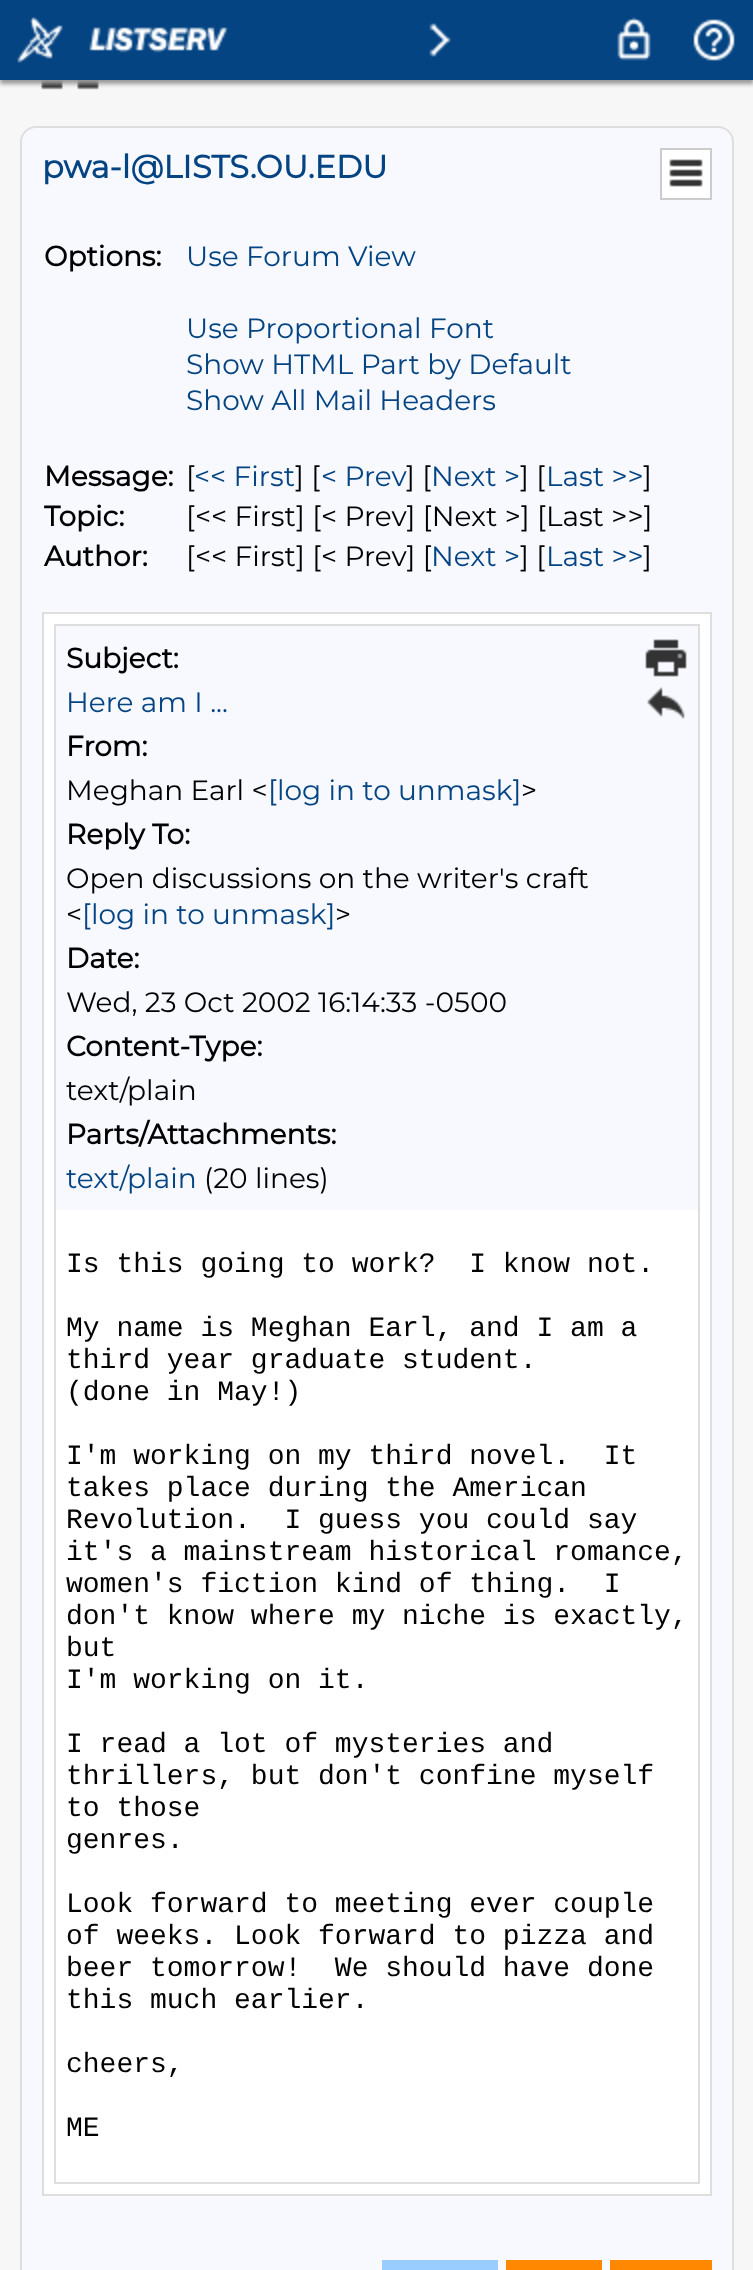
<svg xmlns="http://www.w3.org/2000/svg" width="753" height="2270">
	<rect width="100%" height="100%" fill="#F7F7F7" />
	<image x="41" y="80" width="58" height="10" href="assets/img6.png" />
	<rect x="0" y="4" width="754" height="80" fill="#999999" filter="blur(2px)" />
	<rect x="0" y="0" width="753" height="80" fill="#054483" />
	<image x="17" y="17" width="46" height="46" href="assets/img1.png" />
	<image x="89" y="27" width="140" height="26" href="assets/img2.png" />
	<image x="429" y="23" width="22" height="34" href="assets/img3.png" />
	<image x="617" y="17" width="34" height="44" href="assets/img4.png" />
	<image x="693" y="19" width="42" height="42" href="assets/img5.png" />
	<rect x="21" y="127" width="712" height="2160" rx="15" fill="#F7F9FE" stroke="#DEDEDE" stroke-width="2" />
	<text x="42" y="178" font-family="Montserrat" font-size="32" font-weight="700" fill="#054483">pwa-l@LISTS.OU.EDU</text>
	<rect x="661" y="149" width="50" height="50" fill="#FFFFFF" stroke="#CCCCCC" stroke-width="2" />
	<image x="669" y="159" width="34" height="28" href="assets/img7.png" />
	<text x="44" y="266" font-family="Montserrat" font-size="28" font-weight="700" fill="#000000">Options:</text>
	<g font-family="Montserrat" font-size="28" font-weight="100" fill="#054483">
		<text x="186" y="266">Use Forum View</text>
		<text x="186" y="338">Use Proportional Font</text>
		<text x="186" y="374">Show HTML Part by Default</text>
		<text x="186" y="410">Show All Mail Headers</text>
	</g>
	<text x="44" y="486" font-family="Montserrat" font-size="28" font-weight="700" fill="#000000">Message:</text>
	<text x="186" y="486" font-family="Montserrat" font-size="28" font-weight="100" fill="#000000">[</text>
	<text x="194" y="486" font-family="Montserrat" font-size="28" font-weight="100" fill="#054483">&lt;&lt; First</text>
	<text x="295" y="486" font-family="Montserrat" font-size="28" font-weight="100" fill="#000000">] [</text>
	<text x="321" y="486" font-family="Montserrat" font-size="28" font-weight="100" fill="#054483">&lt; Prev</text>
	<text x="406" y="486" font-family="Montserrat" font-size="28" font-weight="100" fill="#000000">] [</text>
	<text x="431" y="486" font-family="Montserrat" font-size="28" font-weight="100" fill="#054483">Next &gt;</text>
	<text x="520" y="486" font-family="Montserrat" font-size="28" font-weight="100" fill="#000000">] [</text>
	<text x="546" y="486" font-family="Montserrat" font-size="28" font-weight="100" fill="#054483">Last &gt;&gt;</text>
	<text x="643" y="486" font-family="Montserrat" font-size="28" font-weight="100" fill="#000000">]</text>
	<text x="44" y="526" font-family="Montserrat" font-size="28" font-weight="700" fill="#000000">Topic:</text>
	<text x="186" y="526" font-family="Montserrat" font-size="28" font-weight="100" fill="#000000">[&lt;&lt; First] [&lt; Prev] [Next &gt;] [Last &gt;&gt;]</text>
	<text x="44" y="566" font-family="Montserrat" font-size="28" font-weight="700" fill="#000000">Author:</text>
	<text x="186" y="566" font-family="Montserrat" font-size="28" font-weight="100" fill="#000000">[&lt;&lt; First] [&lt; Prev] [</text>
	<text x="431" y="566" font-family="Montserrat" font-size="28" font-weight="100" fill="#054483">Next &gt;</text>
	<text x="520" y="566" font-family="Montserrat" font-size="28" font-weight="100" fill="#000000">] [</text>
	<text x="546" y="566" font-family="Montserrat" font-size="28" font-weight="100" fill="#054483">Last &gt;&gt;</text>
	<text x="643" y="566" font-family="Montserrat" font-size="28" font-weight="100" fill="#000000">]</text>
	<rect x="43" y="613" width="668" height="1582" fill="none" stroke="#DEDEDE" stroke-width="2" />
	<rect x="44" y="614" width="666" height="1580" fill="#FFFFFF" />
	<rect x="55" y="625" width="644" height="1558" fill="none" stroke="#DEDEDE" stroke-width="2" />
	<rect x="56" y="626" width="642" height="584" fill="#F7F9FE" />
	<text x="66" y="668" font-family="Montserrat" font-size="28" font-weight="700" fill="#000000">Subject:</text>
	<text x="66" y="712" font-family="Montserrat" font-size="28" font-weight="100" fill="#054483">Here am I ...</text>
	<text x="66" y="756" font-family="Montserrat" font-size="28" font-weight="700" fill="#000000">From:</text>
	<text x="66" y="800" font-family="Montserrat" font-size="28" font-weight="100" fill="#000000">Meghan Earl &lt;</text>
	<text x="268" y="800" font-family="Montserrat" font-size="28" font-weight="100" fill="#054483">[log in to unmask]</text>
	<text x="521" y="800" font-family="Montserrat" font-size="28" font-weight="100" fill="#000000">&gt;</text>
	<text x="66" y="844" font-family="Montserrat" font-size="28" font-weight="700" fill="#000000">Reply To:</text>
	<g font-family="Montserrat" font-size="28" font-weight="100" fill="#000000">
		<text x="66" y="888">Open discussions on the writer's craft</text>
		<text x="66" y="924">&lt;</text>
	</g>
	<text x="82" y="924" font-family="Montserrat" font-size="28" font-weight="100" fill="#054483">[log in to unmask]</text>
	<text x="335" y="924" font-family="Montserrat" font-size="28" font-weight="100" fill="#000000">&gt;</text>
	<text x="66" y="968" font-family="Montserrat" font-size="28" font-weight="700" fill="#000000">Date:</text>
	<text x="66" y="1012" font-family="Montserrat" font-size="28" font-weight="100" fill="#000000">Wed, 23 Oct 2002 16:14:33 -0500</text>
	<text x="66" y="1056" font-family="Montserrat" font-size="28" font-weight="700" fill="#000000">Content-Type:</text>
	<text x="66" y="1100" font-family="Montserrat" font-size="28" font-weight="100" fill="#000000">text/plain</text>
	<text x="66" y="1144" font-family="Montserrat" font-size="28" font-weight="700" fill="#000000">Parts/Attachments:</text>
	<text x="66" y="1188" font-family="Montserrat" font-size="28" font-weight="100" fill="#054483">text/plain</text>
	<text x="204" y="1188" font-family="Montserrat" font-size="28" font-weight="100" fill="#000000">(20 lines)</text>
	<image x="645" y="639" width="42" height="38" href="assets/img8.png" />
	<image x="647" y="687" width="38" height="32" href="assets/img9.png" />
	<g font-family="Liberation Mono" font-size="28" fill="#000000">
		<text x="66" y="1272" xml:space="preserve">Is this going to work?  I know not.</text>
		<text x="66" y="1336">My name is Meghan Earl, and I am a</text>
		<text x="66" y="1368">third year graduate student.</text>
		<text x="66" y="1400">(done in May!)</text>
		<text x="66" y="1464" xml:space="preserve">I'm working on my third novel.  It</text>
		<text x="66" y="1496">takes place during the American</text>
		<text x="66" y="1528" xml:space="preserve">Revolution.  I guess you could say</text>
		<text x="66" y="1560">it's a mainstream historical romance,</text>
		<text x="66" y="1592" xml:space="preserve">women's fiction kind of thing.  I</text>
		<text x="66" y="1624">don't know where my niche is exactly,</text>
		<text x="66" y="1656">but</text>
		<text x="66" y="1688">I'm working on it.</text>
		<text x="66" y="1752">I read a lot of mysteries and</text>
		<text x="66" y="1784">thrillers, but don't confine myself</text>
		<text x="66" y="1816">to those</text>
		<text x="66" y="1848">genres.</text>
		<text x="66" y="1912">Look forward to meeting ever couple</text>
		<text x="66" y="1944">of weeks. Look forward to pizza and</text>
		<text x="66" y="1976" xml:space="preserve">beer tomorrow!  We should have done</text>
		<text x="66" y="2008">this much earlier.</text>
		<text x="66" y="2072">cheers,</text>
		<text x="66" y="2136">ME</text>
	</g>
	<rect x="382" y="2260" width="116" height="10" fill="#99CCFF" />
	<rect x="506" y="2260" width="96" height="10" fill="#FF8800" />
	<rect x="610" y="2260" width="102" height="10" fill="#FF8800" />
</svg>
